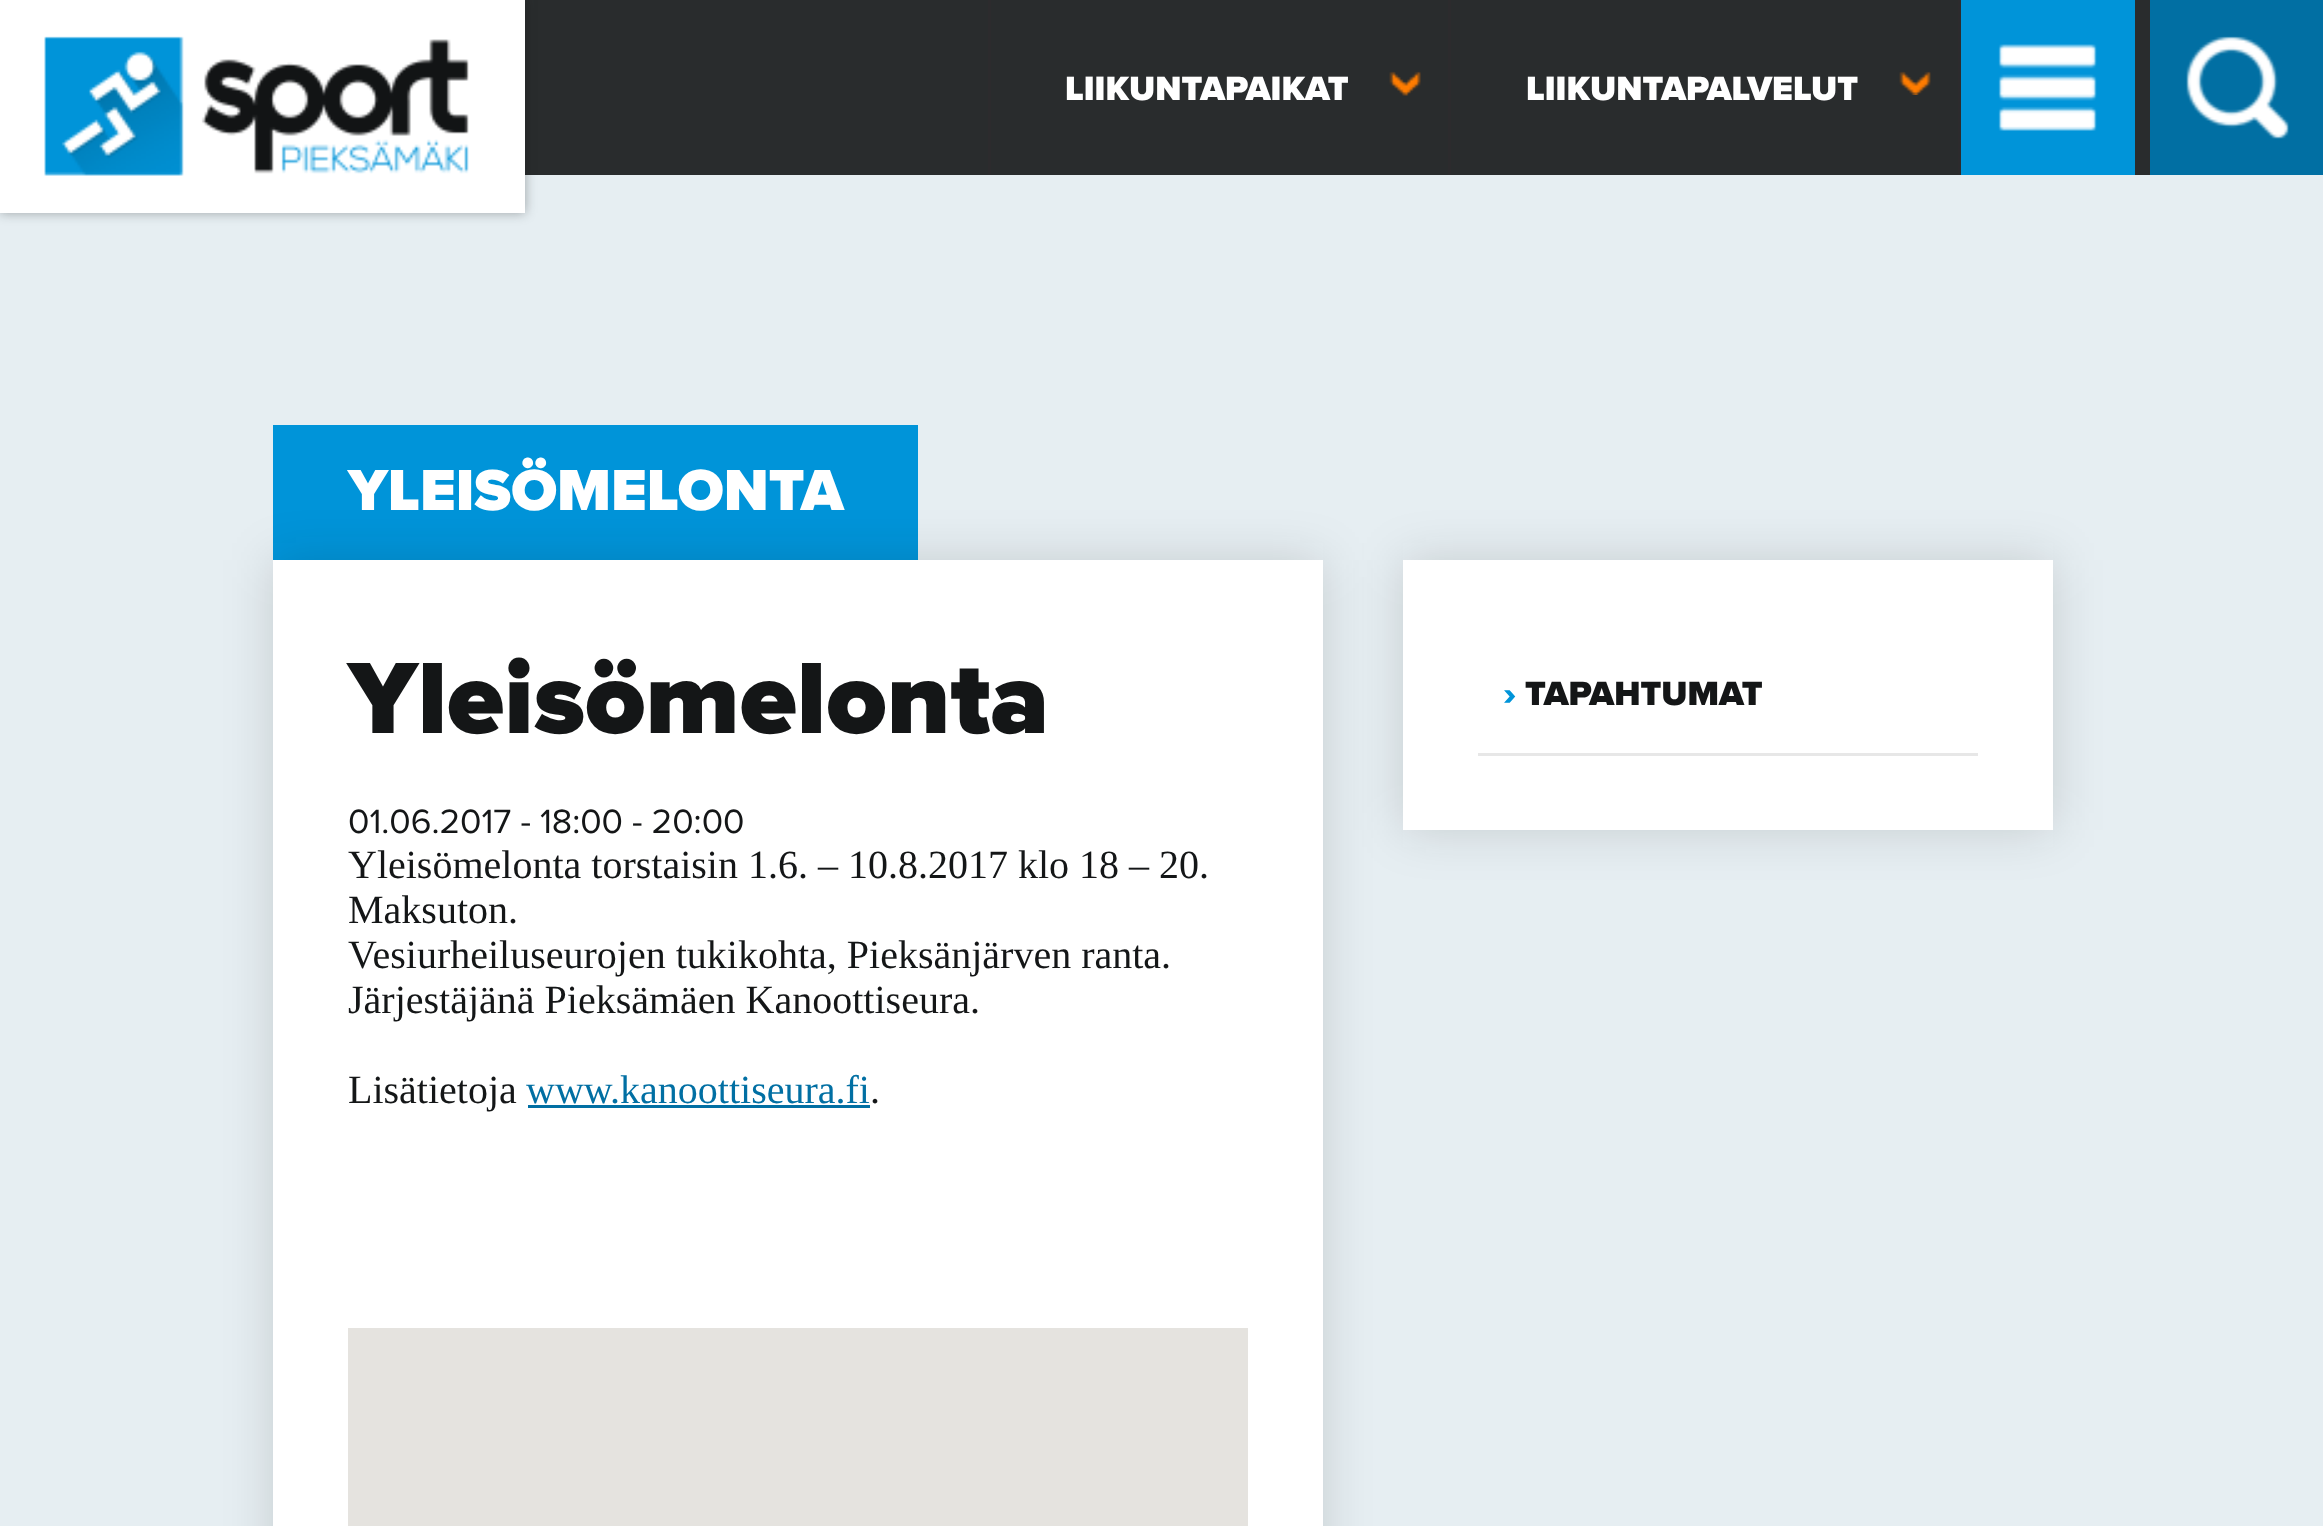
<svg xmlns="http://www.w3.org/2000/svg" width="2323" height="1526">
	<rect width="100%" height="100%" fill="#E6EEF2" />
	<rect x="525" y="0" width="1625" height="175" fill="#292C2D" />
	<rect x="0" y="0" width="525" height="213" fill="#141617" fill-opacity="0.35" filter="blur(6px)" />
	<rect x="0" y="0" width="525" height="213" fill="#FFFFFF" />
	<image x="44" y="36" width="425" height="140" href="assets/img1.png" />
	<image x="1389" y="71" width="32" height="25" href="assets/img2.png" />
	<rect x="988" y="0" width="3" height="175" fill="#2C2B2D" />
	<text x="1065" y="100" font-family="Proxima Nova" font-size="35" font-weight="900" fill="#FFFFFF">LIIKUNTAPAIKAT</text>
	<image x="1899" y="71" width="32" height="24" href="assets/img3.png" />
	<rect x="1448" y="0" width="3" height="175" fill="#2C2B2D" />
	<text x="1526" y="100" font-family="Proxima Nova" font-size="35" font-weight="900" fill="#FFFFFF">LIIKUNTAPALVELUT</text>
	<rect x="1961" y="0" width="174" height="175" fill="#0094D9" />
	<image x="1998" y="44" width="99" height="87" href="assets/img4.png" />
	<rect x="1958" y="0" width="3" height="175" fill="#2C2B2D" />
	<rect x="2150" y="0" width="173" height="175" fill="#016FA3" />
	<image x="2186" y="36" width="103" height="103" href="assets/img5.png" />
	<rect x="273" y="425" width="645" height="135" fill="#0094D9" />
	<text x="348" y="510" font-family="Proxima Nova" font-size="60" font-weight="900" fill="#FFFFFF">YLEISÖMELONTA</text>
	<rect x="273" y="560" width="1050" height="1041" fill="#141617" fill-opacity="0.15" filter="blur(25px)" />
	<rect x="273" y="560" width="1050" height="966" fill="#FFFFFF" />
	<text x="348" y="733" font-family="Proxima Nova" font-size="105" font-weight="900" fill="#141617">Yleisömelonta</text>
	<text x="348" y="833" font-family="Proxima Nova" font-size="35" fill="#141617">01.06.2017 - 18:00 - 20:00</text>
	<g font-family="Liberation Serif" font-size="40" fill="#141617">
		<text x="348" y="878">Yleisömelonta torstaisin 1.6. – 10.8.2017 klo 18 – 20.</text>
		<text x="348" y="923">Maksuton.</text>
		<text x="348" y="968">Vesiurheiluseurojen tukikohta, Pieksänjärven ranta.</text>
		<text x="348" y="1013">Järjestäjänä Pieksämäen Kanoottiseura.</text>
		<text x="348" y="1103">Lisätietoja</text>
	</g>
	<text x="526" y="1103" font-family="Liberation Serif" font-size="40" fill="#016FA3">www.kanoottiseura.fi</text>
	<text x="870" y="1103" font-family="Liberation Serif" font-size="40" fill="#141617">.</text>
	<rect x="528" y="1105" width="342" height="3" fill="#016FA3" />
	<rect x="348" y="1328" width="900" height="198" fill="#E5E3DF" />
	<rect x="1403" y="560" width="650" height="270" fill="#141617" fill-opacity="0.15" filter="blur(25px)" />
	<rect x="1403" y="560" width="650" height="270" fill="#FFFFFF" />
	<rect x="1478" y="753" width="500" height="3" fill="#E7E7E7" />
	<text x="1503" y="705" font-family="Proxima Nova" font-size="35" font-weight="900" fill="#0094D9">›</text>
	<text x="1525" y="705" font-family="Proxima Nova" font-size="35" font-weight="900" fill="#141617">TAPAHTUMAT</text>
</svg>
